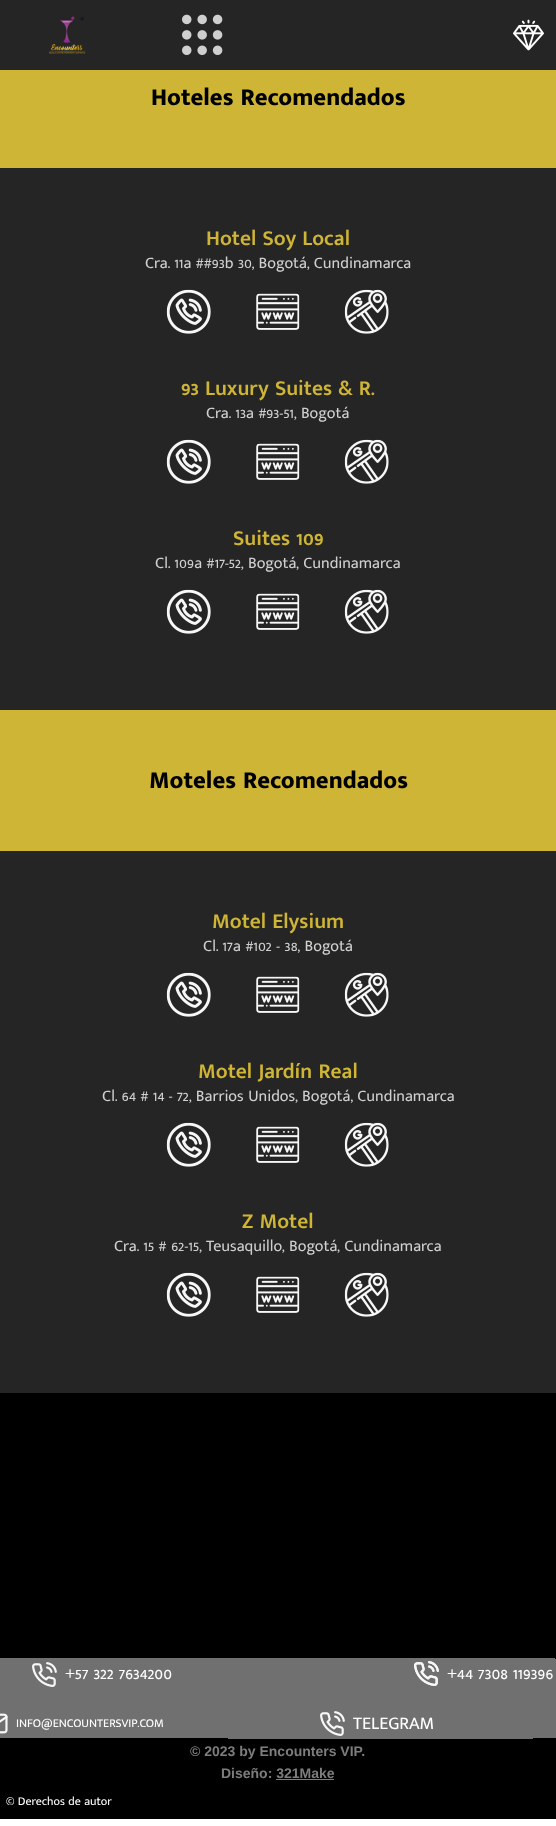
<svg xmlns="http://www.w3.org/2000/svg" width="556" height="1826">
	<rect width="100%" height="100%" fill="#FFFFFF" />
	<rect x="0" y="0" width="556" height="70" fill="#252525" />
	<image x="48" y="16" width="38" height="38" href="assets/img1.png" />
	<image x="182" y="14" width="41" height="41" href="assets/img2.png" />
	<image x="513" y="19" width="31" height="32" href="assets/img3.png" />
	<rect x="0" y="70" width="556" height="98" fill="#CFB536" />
	<text x="151" y="105" font-family="Mukta Malar" font-size="24.5" font-weight="800" fill="#000000">Hoteles Recomendados</text>
	<rect x="0" y="168" width="556" height="542" fill="#252525" />
	<text x="206" y="245" font-family="Mukta Malar" font-size="21.5" font-weight="600" fill="#CFB536">Hotel Soy Local</text>
	<text x="145" y="268" font-family="Mukta Malar" font-size="16.2" fill="#CFCFCF">Cra. 11a ##93b 30, Bogotá, Cundinamarca</text>
	<image x="166" y="289" width="45" height="45" href="assets/img4.png" />
	<image x="256" y="293" width="44" height="37" href="assets/img5.png" />
	<image x="344" y="289" width="45" height="45" href="assets/img6.png" />
	<text x="181" y="395" font-family="Mukta Malar" font-size="21.5" font-weight="600" fill="#CFB536">93 Luxury Suites &amp; R.</text>
	<text x="206" y="418" font-family="Mukta Malar" font-size="16.2" fill="#CFCFCF">Cra. 13a #93-51, Bogotá</text>
	<image x="166" y="439" width="45" height="45" href="assets/img4.png" />
	<image x="256" y="443" width="44" height="37" href="assets/img5.png" />
	<image x="344" y="439" width="45" height="45" href="assets/img6.png" />
	<text x="233" y="545" font-family="Mukta Malar" font-size="21.5" font-weight="600" fill="#CFB536">Suites 109</text>
	<text x="155" y="568" font-family="Mukta Malar" font-size="16.2" fill="#CFCFCF">Cl. 109a #17-52, Bogotá, Cundinamarca</text>
	<image x="166" y="589" width="45" height="45" href="assets/img4.png" />
	<image x="256" y="593" width="44" height="37" href="assets/img5.png" />
	<image x="344" y="589" width="45" height="45" href="assets/img6.png" />
	<rect x="0" y="710" width="556" height="141" fill="#CFB536" />
	<text x="149" y="788" font-family="Mukta Malar" font-size="24.5" font-weight="800" fill="#000000">Moteles Recomendados</text>
	<rect x="0" y="851" width="556" height="542" fill="#252525" />
	<text x="212" y="928" font-family="Mukta Malar" font-size="21.5" font-weight="600" fill="#CFB536">Motel Elysium</text>
	<text x="203" y="951" font-family="Mukta Malar" font-size="16.2" fill="#CFCFCF">Cl. 17a #102 - 38, Bogotá</text>
	<image x="166" y="972" width="45" height="45" href="assets/img4.png" />
	<image x="256" y="976" width="44" height="37" href="assets/img5.png" />
	<image x="344" y="972" width="45" height="45" href="assets/img6.png" />
	<text x="198" y="1078" font-family="Mukta Malar" font-size="21.5" font-weight="600" fill="#CFB536">Motel Jardín Real</text>
	<text x="102" y="1101" font-family="Mukta Malar" font-size="16.2" fill="#CFCFCF">Cl. 64 # 14 - 72, Barrios Unidos, Bogotá, Cundinamarca</text>
	<image x="166" y="1122" width="45" height="45" href="assets/img4.png" />
	<image x="256" y="1126" width="44" height="37" href="assets/img5.png" />
	<image x="344" y="1122" width="45" height="45" href="assets/img6.png" />
	<text x="242" y="1228" font-family="Mukta Malar" font-size="21.5" font-weight="600" fill="#CFB536">Z Motel</text>
	<text x="114" y="1251" font-family="Mukta Malar" font-size="16.2" fill="#CFCFCF">Cra. 15 # 62-15, Teusaquillo, Bogotá, Cundinamarca</text>
	<image x="166" y="1272" width="45" height="45" href="assets/img4.png" />
	<image x="256" y="1276" width="44" height="37" href="assets/img5.png" />
	<image x="344" y="1272" width="45" height="45" href="assets/img6.png" />
	<rect x="0" y="1393" width="556" height="426" fill="#000000" />
	<rect x="0" y="1658" width="555" height="1" fill="#707070" />
	<rect x="0" y="1659" width="556" height="79" fill="#707070" />
	<image x="32" y="1662" width="25" height="25" href="assets/img7.png" />
	<text x="65" y="1679" font-family="Mukta Malar" font-size="18" fill="#FFFFFF">+57 322 7634200</text>
	<image x="414" y="1661" width="25" height="25" href="assets/img7.png" />
	<image x="414" y="1661" width="25" height="25" href="assets/img8.png" />
	<text x="447" y="1679" font-family="Mukta Malar" font-size="18" fill="#FFFFFF">+44 7308 119396</text>
	<image x="0" y="1713" width="8" height="21" href="assets/img9.png" />
	<text x="16" y="1727" font-family="Mukta Malar" font-size="12" fill="#FFFFFF">INFO@ENCOUNTERSVIP.COM</text>
	<image x="320" y="1711" width="25" height="25" href="assets/img7.png" />
	<text x="353" y="1729" font-family="Mukta Malar" font-size="18" fill="#FFFFFF">TELEGRAM</text>
	<rect x="228" y="1738" width="305" height="1" fill="#707070" />
	<g font-family="Liberation Sans" font-size="14" font-weight="700" fill="#7D7D7D">
		<text x="190" y="1756">© 2023 by Encounters VIP.</text>
		<text x="221" y="1778">Diseño: 321Make</text>
	</g>
	<rect x="276" y="1779" width="58" height="1" fill="#7D7D7D" />
	<text x="6" y="1805" font-family="Mukta Malar" font-size="12" fill="#FFFFFF">© Derechos de autor</text>
</svg>
